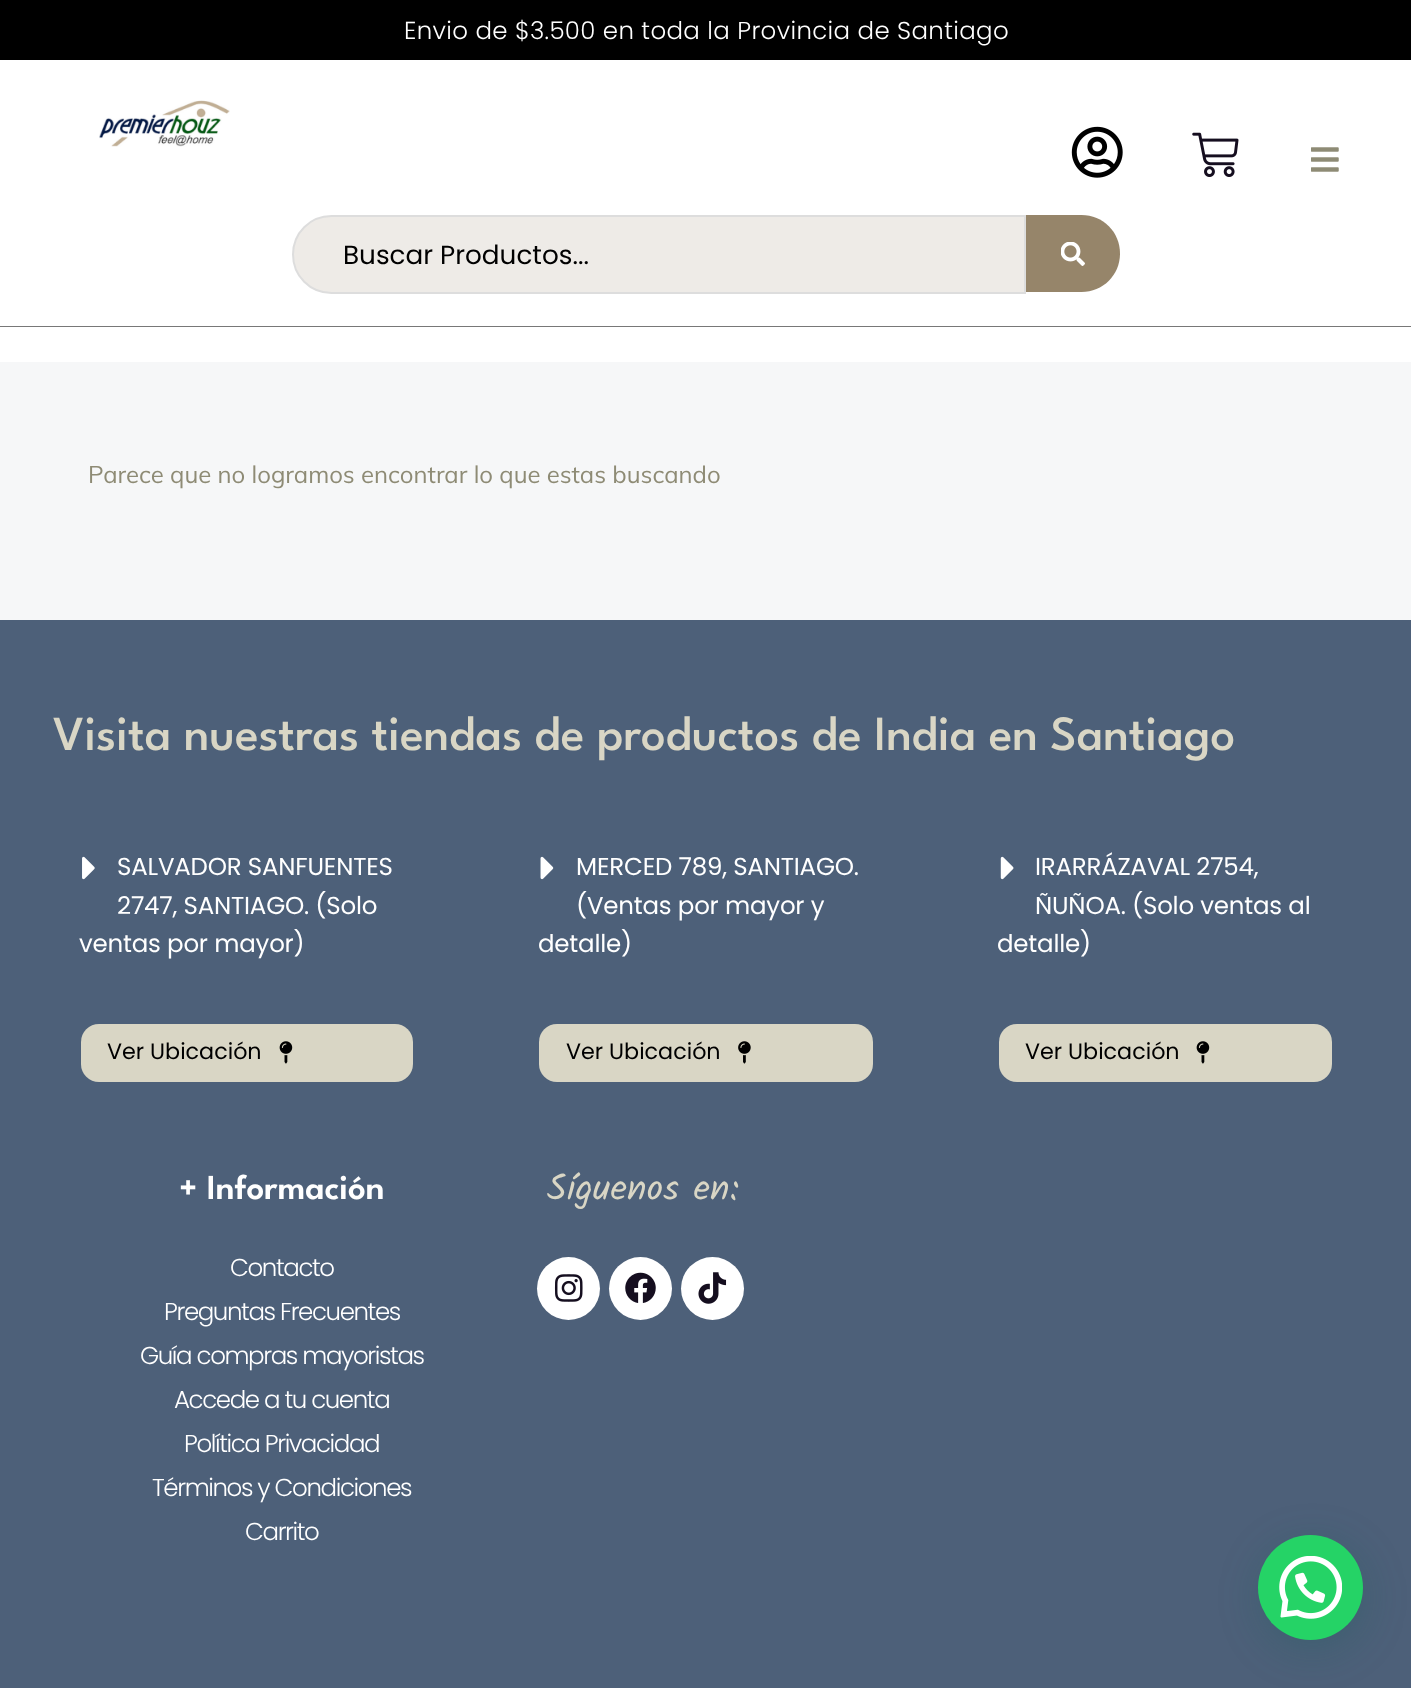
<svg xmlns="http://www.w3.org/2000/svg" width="1411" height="1688">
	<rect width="100%" height="100%" fill="#F6F7F8" />
	<rect x="0" y="0" width="1411" height="60" fill="#000000" />
	<text x="404" y="39" font-family="Poppins" font-size="24.5" font-weight="300" letter-spacing="0.35" fill="#FFFFFF">Envio de $3.500 en toda la Provincia de Santiago</text>
	<rect x="0" y="60" width="1411" height="266" fill="#FFFFFF" />
	<rect x="0" y="326" width="1411" height="1" fill="#787878" />
	<image x="99" y="100" width="131" height="47" href="assets/img1.png" />
	<image x="1071" y="126" width="52" height="52" href="assets/img2.png" />
	<image x="1192" y="132" width="47" height="45" href="assets/img3.png" />
	<image x="1311" y="147" width="28" height="25" href="assets/img4.png" />
	<path d="M331.5 216H1025V293H331.5C310 293 293 276 293 254.5C293 233 310 216 331.5 216Z" fill="#EEEBE7" stroke="#DDDDDD" stroke-width="2" />
	<text x="343" y="264" font-family="Poppins" font-size="26.25" fill="#000000">Buscar Productos...</text>
	<path d="M1026 215H1081.5C1103 215 1120 232 1120 253.5C1120 275 1103 292 1081.5 292H1026Z" fill="#96856A" />
	<image x="1061" y="242" width="24" height="24" href="assets/img5.png" />
	<rect x="0" y="327" width="1411" height="35" fill="#FFFFFF" />
	<text x="88" y="483" font-family="Muli" font-size="23.95" fill="#8E8B75">Parece que no logramos encontrar lo que estas buscando</text>
	<rect x="0" y="620" width="1411" height="1068" fill="#4D6079" />
	<text x="53" y="750" font-family="League Spartan" font-size="49" font-weight="500" fill="#D9D6C5">Visita nuestras tiendas de productos de India en Santiago</text>
	<image x="82" y="856" width="13" height="24" href="assets/img6.png" />
	<g font-family="Poppins" font-size="24.5" letter-spacing="-0.2" fill="#FFFFFF">
		<text x="117" y="875">SALVADOR SANFUENTES</text>
		<text x="117" y="914">2747, SANTIAGO. (Solo</text>
		<text x="79" y="952">ventas por mayor)</text>
	</g>
	<rect x="81" y="1024" width="332" height="58" rx="18" fill="#D9D6C5" />
	<text x="107" y="1059" font-family="Poppins" font-size="22.25" fill="#000000">Ver Ubicación</text>
	<image x="279" y="1041" width="14" height="23" href="assets/img7.png" />
	<image x="540" y="856" width="14" height="24" href="assets/img8.png" />
	<g font-family="Poppins" font-size="24.5" letter-spacing="-0.2" fill="#FFFFFF">
		<text x="576" y="875">MERCED 789, SANTIAGO.</text>
		<text x="576" y="914">(Ventas por mayor y</text>
		<text x="538" y="952">detalle)</text>
	</g>
	<rect x="539" y="1024" width="334" height="58" rx="18" fill="#D9D6C5" />
	<text x="566" y="1059" font-family="Poppins" font-size="22.25" fill="#000000">Ver Ubicación</text>
	<image x="738" y="1041" width="13" height="23" href="assets/img9.png" />
	<image x="1000" y="856" width="14" height="24" href="assets/img10.png" />
	<g font-family="Poppins" font-size="24.5" letter-spacing="-0.2" fill="#FFFFFF">
		<text x="1035" y="875">IRARRÁZAVAL 2754,</text>
		<text x="1035" y="914">ÑUÑOA. (Solo ventas al</text>
		<text x="997" y="952">detalle)</text>
	</g>
	<rect x="999" y="1024" width="333" height="58" rx="18" fill="#D9D6C5" />
	<text x="1025" y="1059" font-family="Poppins" font-size="22.25" fill="#000000">Ver Ubicación</text>
	<image x="1196" y="1041" width="14" height="23" href="assets/img7.png" />
	<text x="179" y="1199" font-family="League Spartan" font-size="35" font-weight="600" fill="#FFFFFF">+ Información</text>
	<g font-family="Poppins" font-size="24.5" font-weight="300" letter-spacing="-1.4" fill="#FFFFFF">
		<text x="230" y="1276">Contacto</text>
		<text x="164" y="1320">Preguntas Frecuentes</text>
		<text x="140" y="1364">Guía compras mayoristas</text>
		<text x="174" y="1408">Accede a tu cuenta</text>
		<text x="184" y="1452">Política Privacidad</text>
		<text x="152" y="1496">Términos y Condiciones</text>
		<text x="245" y="1540">Carrito</text>
	</g>
	<text x="547" y="1200" font-family="Kalam" font-size="36.75" fill="#D9D6C5">Síguenos en:</text>
	<circle cx="568.5" cy="1288.5" r="31.5" fill="#FFFFFF" />
	<image x="554" y="1274" width="29" height="28" href="assets/img11.png" />
	<circle cx="640.5" cy="1288.5" r="31.5" fill="#FFFFFF" />
	<image x="625" y="1272" width="31" height="31" href="assets/img12.png" />
	<circle cx="712.5" cy="1288.5" r="31.5" fill="#FFFFFF" />
	<image x="698" y="1272" width="29" height="32" href="assets/img13.png" />
	<rect x="1260" y="1545" width="105" height="105" rx="52.5" fill="#075E54" fill-opacity="0.24" filter="blur(21px)" />
	<circle cx="1310.5" cy="1587.5" r="52.5" fill="#25D366" />
	<image x="1279" y="1556" width="63" height="63" href="assets/img14.png" />
</svg>
